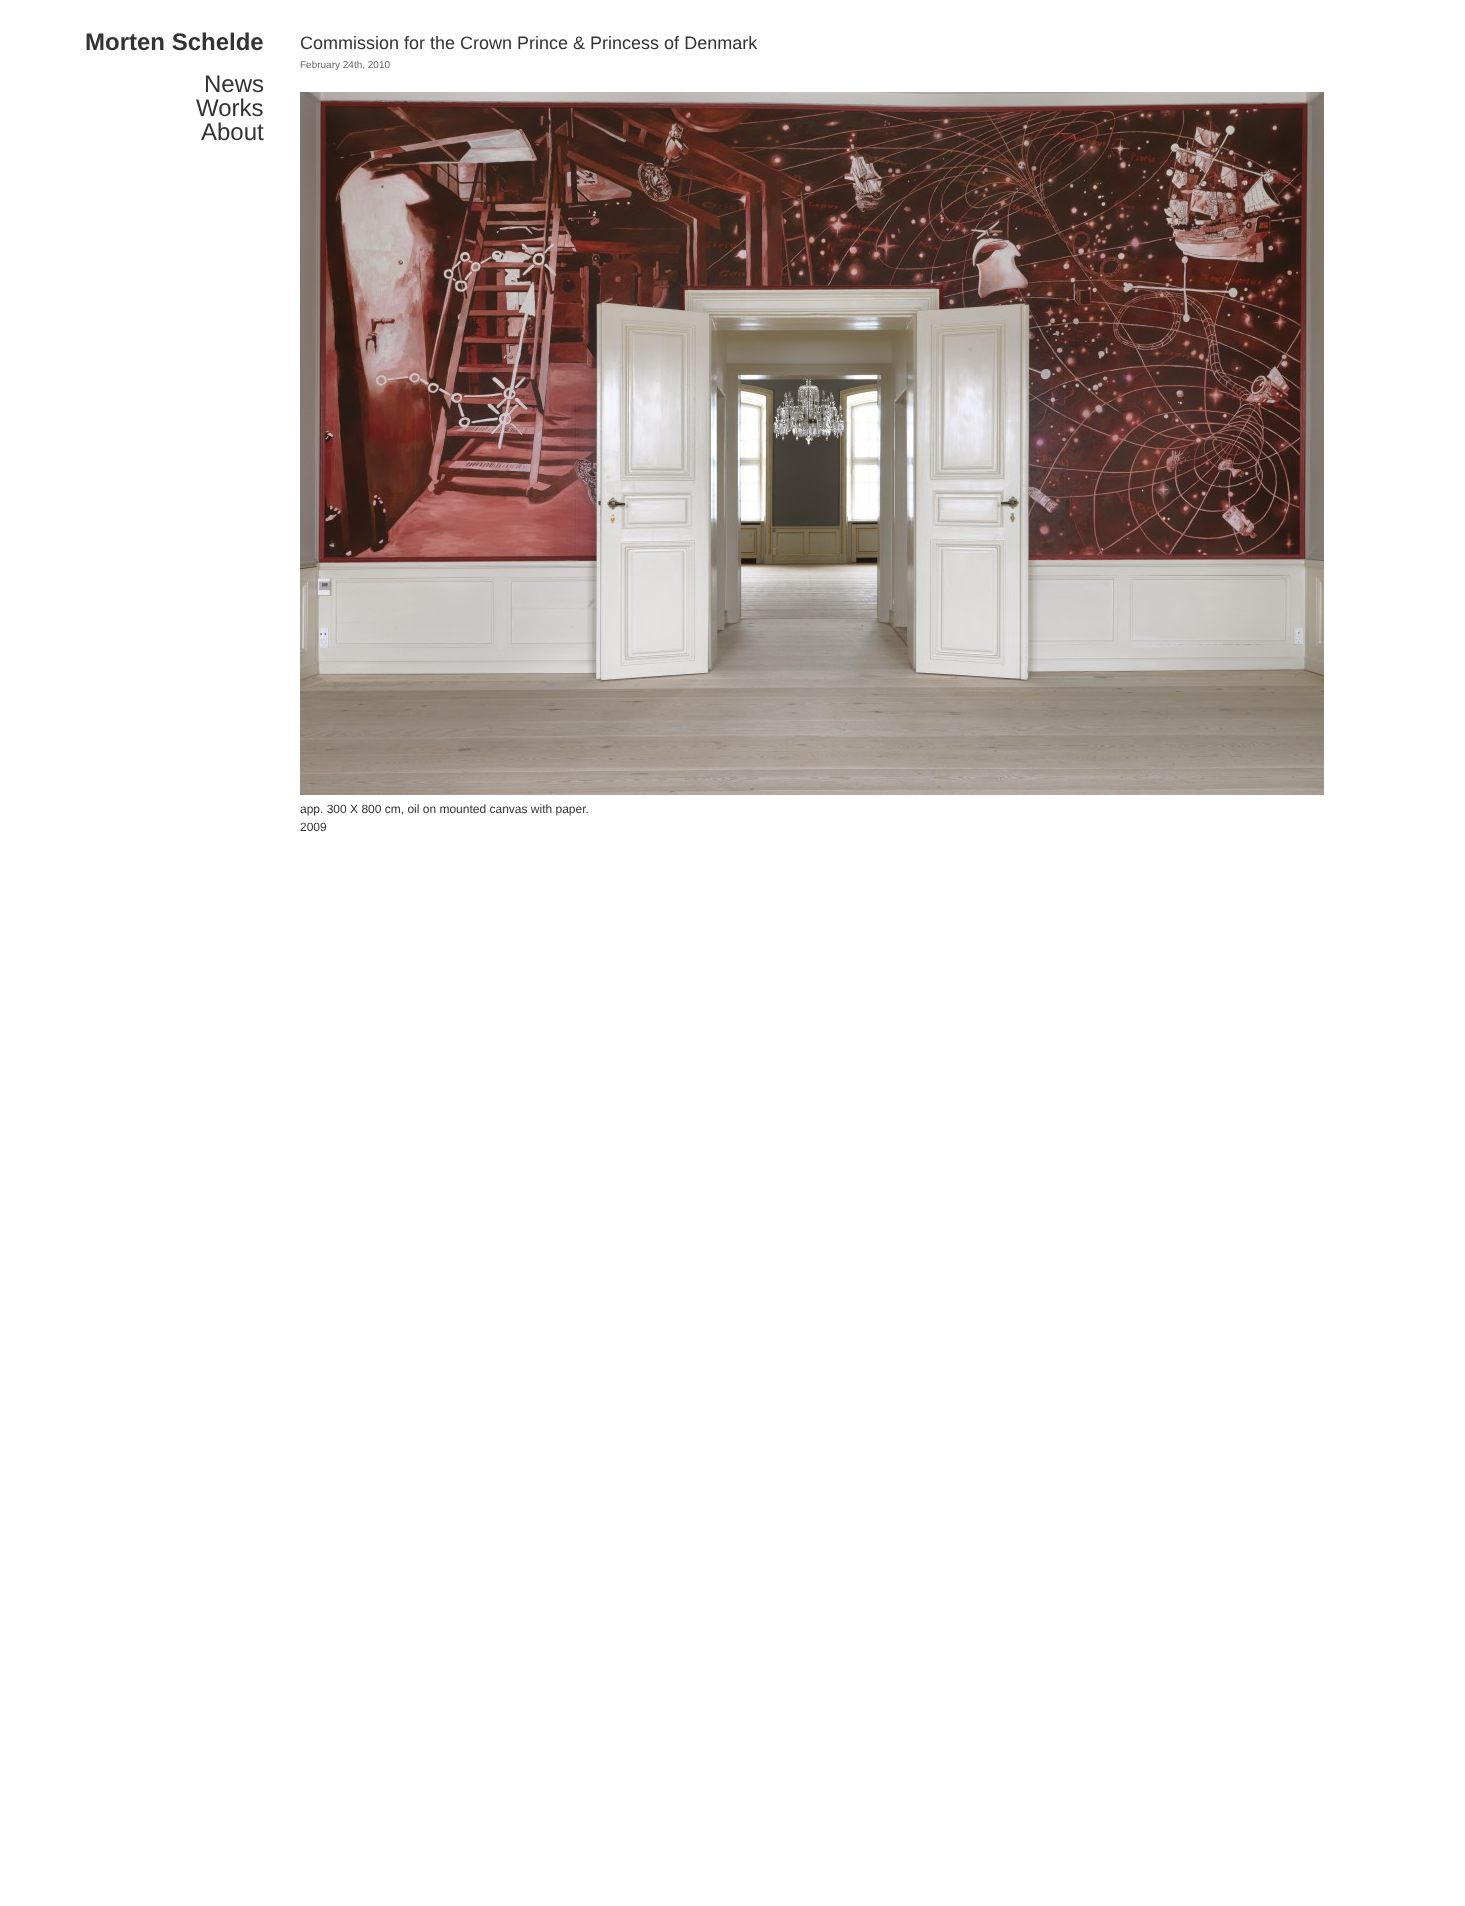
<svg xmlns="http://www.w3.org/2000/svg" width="1465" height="1906">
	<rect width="100%" height="100%" fill="#FFFFFF" />
	<text x="85" y="50" font-family="Liberation Sans" font-size="24" font-weight="700" fill="#333333">Morten Schelde</text>
	<g font-family="Liberation Sans" font-size="24" fill="#333333">
		<text x="204" y="92">News</text>
		<text x="196" y="116">Works</text>
		<text x="201" y="140">About</text>
	</g>
	<text x="300" y="49" font-family="Liberation Sans" font-size="18" fill="#333333">Commission for the Crown Prince &amp; Princess of Denmark</text>
	<text x="300" y="68" font-family="Liberation Sans" font-size="10" fill="#666666">February 24th, 2010</text>
	<image x="300" y="92" width="1024" height="703" href="assets/img1.png" />
	<g font-family="Liberation Sans" font-size="12" fill="#333333">
		<text x="300" y="813">app. 300 X 800 cm, oil on mounted canvas with paper.</text>
		<text x="300" y="831">2009</text>
	</g>
</svg>
